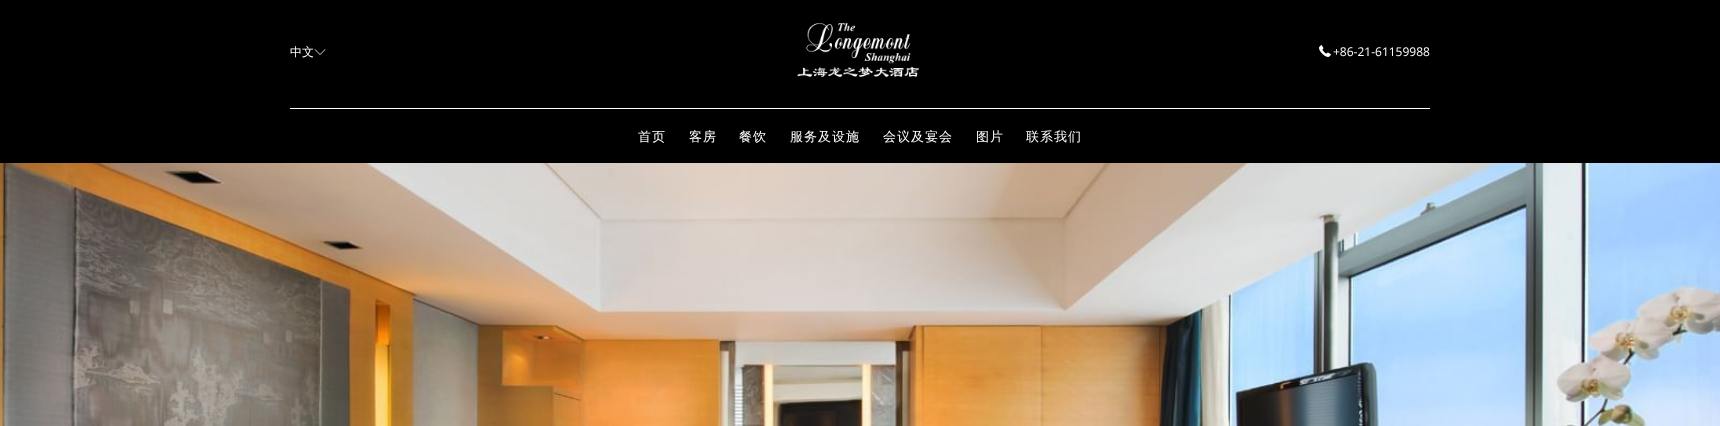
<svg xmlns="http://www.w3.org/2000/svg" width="1720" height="426">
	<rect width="100%" height="100%" fill="#FFFFFF" />
	<rect x="0" y="0" width="1720" height="163" fill="#000000" />
	<text x="290" y="56" font-family="WenQuanYi Zen Hei" font-size="12" font-weight="500" fill="#FFFFFF">中文</text>
	<image x="314" y="49" width="12" height="6" href="assets/img1.png" />
	<image x="797" y="22" width="122" height="56" href="assets/img2.png" />
	<image x="1319" y="45" width="12" height="12" href="assets/img3.png" />
	<text x="1333" y="56" font-family="Open Sans" font-size="12" fill="#FFFFFF">+86-21-61159988</text>
	<rect x="290" y="108" width="1140" height="1" fill="#FFFFFF" />
	<g font-family="WenQuanYi Zen Hei" font-size="13" font-weight="500" letter-spacing="1" fill="#FFFFFF">
		<text x="638" y="141">首页</text>
		<text x="689" y="141">客房</text>
		<text x="739" y="141">餐饮</text>
		<text x="790" y="141">服务及设施</text>
		<text x="883" y="141">会议及宴会</text>
		<text x="976" y="141">图片</text>
		<text x="1026" y="141">联系我们</text>
	</g>
	<image x="0" y="163" width="1720" height="263" href="assets/img4.png" />
</svg>
